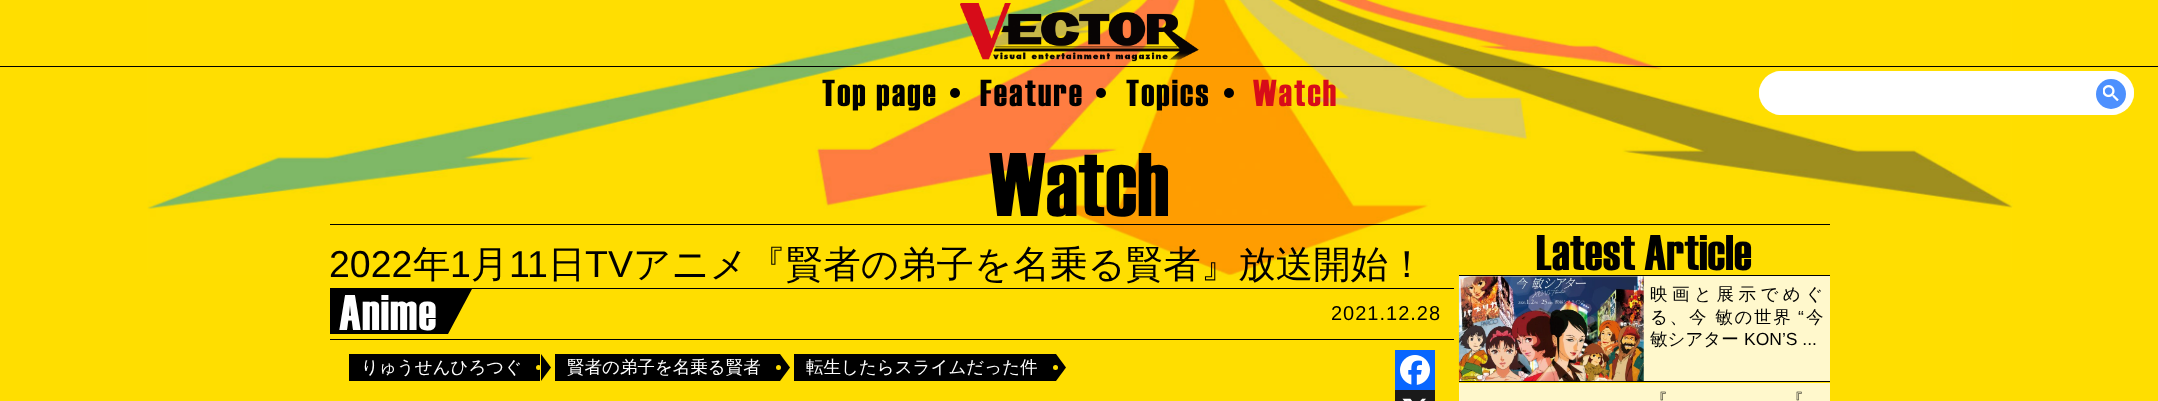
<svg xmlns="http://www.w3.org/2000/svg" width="2158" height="401">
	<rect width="100%" height="100%" fill="#FFDE00" />
	<image x="147" y="0" width="1866" height="277" href="assets/img1.png" />
	<rect x="0" y="66" width="2158" height="1" fill="#000000" />
	<image x="960" y="3" width="239" height="59" href="assets/img2.png" />
	<text x="822" y="106" font-family="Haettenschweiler" font-size="37.5" font-weight="500" letter-spacing="2" fill="#000000">Top page</text>
	<circle cx="955" cy="93" r="5" fill="#000000" />
	<text x="980" y="106" font-family="Haettenschweiler" font-size="37.5" font-weight="500" letter-spacing="2" fill="#000000">Feature</text>
	<circle cx="1101" cy="93" r="5" fill="#000000" />
	<text x="1126" y="106" font-family="Haettenschweiler" font-size="37.5" font-weight="500" letter-spacing="2" fill="#000000">Topics</text>
	<circle cx="1229" cy="93" r="5" fill="#000000" />
	<text x="1253" y="106" font-family="Haettenschweiler" font-size="37.5" font-weight="500" letter-spacing="2" fill="#D70C19">Watch</text>
	<rect x="1759" y="71" width="375" height="44" rx="22" fill="#FFFFFF" />
	<path d="M1781 115H2112L2119 114H1774ZM1760 100C1759 95 1759 91 1760 86ZM1781 71L1774 72H2119L2112 71ZM2133 86V100C2134 95 2134 91 2133 86Z" fill="#FFFFFF" fill-rule="evenodd" />
	<circle cx="2111" cy="94" r="15" fill="#4D90FE" />
	<image x="2103" y="85" width="16" height="16" href="assets/img3.png" />
	<rect x="330" y="224" width="1500" height="1" fill="#000000" />
	<text x="989" y="216" font-family="Haettenschweiler" font-size="90" font-weight="500" fill="#000000">Watch</text>
	<rect x="330" y="288" width="1124" height="1" fill="#000000" />
	<text x="329" y="277" font-family="Liberation Sans" font-size="37.5" fill="#000000">2022</text>
	<text x="413" y="277" font-family="WenQuanYi Zen Hei" font-size="37.5" font-weight="500" fill="#000000">年</text>
	<text x="450" y="277" font-family="Liberation Sans" font-size="37.5" fill="#000000">1</text>
	<text x="471" y="277" font-family="WenQuanYi Zen Hei" font-size="37.5" font-weight="500" fill="#000000">月</text>
	<text x="509" y="277" font-family="Liberation Sans" font-size="37.5" fill="#000000">11</text>
	<text x="548" y="277" font-family="WenQuanYi Zen Hei" font-size="37.5" font-weight="500" fill="#000000">日</text>
	<text x="585" y="277" font-family="Liberation Sans" font-size="37.5" fill="#000000">TV</text>
	<text x="633" y="277" font-family="WenQuanYi Zen Hei" font-size="37.5" font-weight="500" fill="#000000">アニメ『賢者の弟子を名乗る賢者』放送開始！</text>
	<rect x="330" y="339" width="1124" height="1" fill="#000000" />
	<rect x="330" y="289" width="118" height="45" fill="#000000" />
	<text x="339" y="330" font-family="Haettenschweiler" font-size="50" font-weight="500" letter-spacing="1" fill="#FFFFFF">Anime</text>
	<path d="M448 289H472L448 334Z" fill="#000000" />
	<text x="1331" y="320" font-family="Liberation Sans" font-size="20" letter-spacing="1" fill="#000000">2021.12.28</text>
	<rect x="349" y="354" width="191" height="27" fill="#000000" />
	<text x="361" y="373" font-family="WenQuanYi Zen Hei" font-size="17.5" font-weight="500" fill="#FFFFFF">りゅうせんひろつぐ</text>
	<circle cx="538.5" cy="367.5" r="2.5" fill="#FFDE00" />
	<path d="M541 381V354L551 367.5Z" fill="#000000" />
	<rect x="555" y="354" width="225" height="27" fill="#000000" />
	<text x="567" y="373" font-family="WenQuanYi Zen Hei" font-size="17.5" font-weight="500" fill="#FFFFFF">賢者の弟子を名乗る賢者</text>
	<path d="M780 381V354L790 367.5Z" fill="#000000" />
	<circle cx="778.5" cy="367.5" r="2.5" fill="#FFDE00" />
	<rect x="794" y="354" width="262" height="27" fill="#000000" />
	<text x="806" y="373" font-family="WenQuanYi Zen Hei" font-size="17.5" font-weight="500" fill="#FFFFFF">転生したらスライムだった件</text>
	<path d="M1056 381V354L1066 367.5Z" fill="#000000" />
	<circle cx="1055.5" cy="367.5" r="2.5" fill="#FFDE00" />
	<rect x="1395" y="350" width="40" height="40" fill="#0866FF" />
	<image x="1400" y="355" width="30" height="30" href="assets/img4.png" />
	<rect x="1395" y="390" width="40" height="11" fill="#1A1A1A" />
	<image x="1402" y="398" width="24" height="3" href="assets/img5.png" />
	<text x="1536" y="270" font-family="Haettenschweiler" font-size="50" font-weight="500" fill="#000000">Latest Article</text>
	<rect x="1459" y="275" width="371" height="1" fill="#000000" />
	<rect x="1459" y="381" width="371" height="1" fill="#000000" />
	<rect x="1459" y="276" width="371" height="105" fill="#FFF8CC" />
	<image x="1458" y="276" width="186" height="106" href="assets/img6.png" />
	<text x="1650" y="300" font-family="WenQuanYi Zen Hei" font-size="17.5" font-weight="500" letter-spacing="4.5" fill="#000000">映画と展示でめぐ</text>
	<text x="1650" y="323" font-family="WenQuanYi Zen Hei" font-size="17.5" font-weight="500" letter-spacing="1.75" fill="#000000">る、今 敏の世界</text>
	<text x="1798" y="323" font-family="Liberation Sans" font-size="17.5" letter-spacing="1.75" fill="#000000">“</text>
	<text x="1806" y="323" font-family="WenQuanYi Zen Hei" font-size="17.5" font-weight="500" letter-spacing="1.75" fill="#000000">今</text>
	<text x="1650" y="345" font-family="WenQuanYi Zen Hei" font-size="17.5" font-weight="500" fill="#000000">敏シアター</text>
	<text x="1744" y="345" font-family="Liberation Sans" font-size="17.5" fill="#000000">KON’S ...</text>
	<rect x="1459" y="383" width="371" height="18" fill="#FFF8CC" />
	<g font-family="WenQuanYi Zen Hei" font-size="17.5" font-weight="500" letter-spacing="2" fill="#000000">
		<text x="1650" y="406">『</text>
		<text x="1786" y="406">『</text>
	</g>
</svg>
